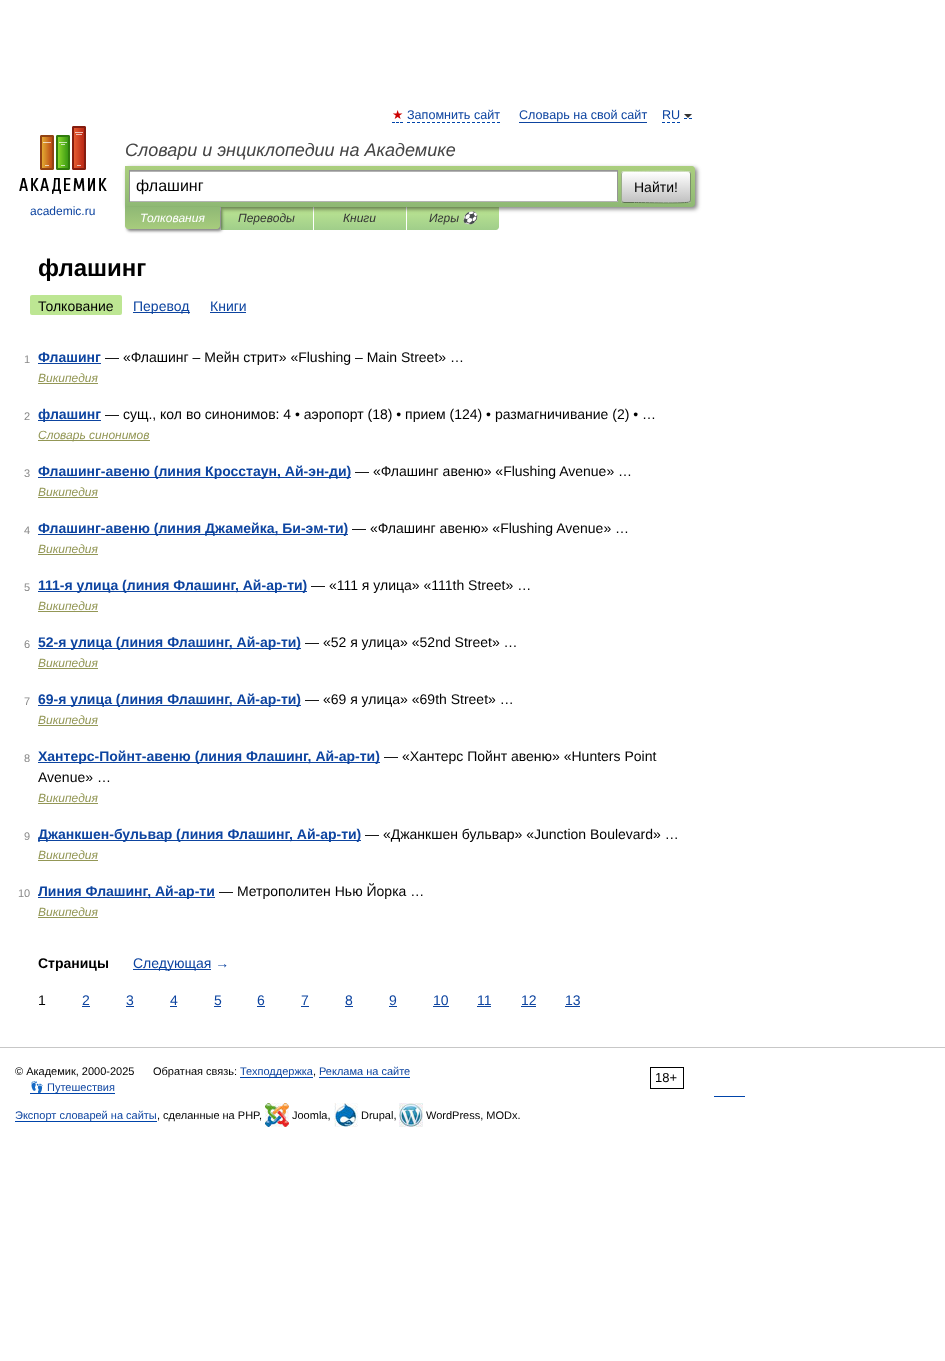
<svg xmlns="http://www.w3.org/2000/svg" width="945" height="1361">
	<defs>
		<linearGradient id="g1" gradientUnits="userSpaceOnUse" x1="267" y1="207" x2="267" y2="230"><stop offset="0" stop-color="#BDE693" /><stop offset="1" stop-color="#A0CE8A" /></linearGradient>
		<linearGradient id="g2" gradientUnits="userSpaceOnUse" x1="360" y1="207" x2="360" y2="230"><stop offset="0" stop-color="#BDE693" /><stop offset="1" stop-color="#A0CE8A" /></linearGradient>
		<linearGradient id="g3" gradientUnits="userSpaceOnUse" x1="453" y1="207" x2="453" y2="230"><stop offset="0" stop-color="#BDE693" /><stop offset="1" stop-color="#A0CE8A" /></linearGradient>
		<linearGradient id="g4" gradientUnits="userSpaceOnUse" x1="410" y1="166" x2="410" y2="207"><stop offset="0" stop-color="#ABCF7E" /><stop offset="1" stop-color="#8EB874" /></linearGradient>
		<clipPath id="clip1"><rect x="621" y="171" width="70" height="32" rx="3" /></clipPath>
		<linearGradient id="g5" gradientUnits="userSpaceOnUse" x1="656" y1="142" x2="656" y2="172"><stop offset="0" stop-color="#FFFFFF" /><stop offset="1" stop-color="#C1C1C1" /></linearGradient>
		<linearGradient id="g6" gradientUnits="userSpaceOnUse" x1="656" y1="172" x2="656" y2="202"><stop offset="0" stop-color="#FFFFFF" /><stop offset="1" stop-color="#C1C1C1" /></linearGradient>
		<linearGradient id="g7" gradientUnits="userSpaceOnUse" x1="656" y1="202" x2="656" y2="232"><stop offset="0" stop-color="#FFFFFF" /><stop offset="1" stop-color="#C1C1C1" /></linearGradient>
		<linearGradient id="g8" gradientUnits="userSpaceOnUse" x1="173" y1="207" x2="173" y2="229"><stop offset="0" stop-color="#8FB875" /><stop offset="1" stop-color="#A7CC7D" /></linearGradient>
	</defs>
	<rect width="100%" height="100%" fill="#FFFFFF" />
	<text x="392" y="119" font-family="DejaVu Sans" font-size="12.6" fill="#CC0000">★</text>
	<path d="M392 122.5H395M396 122.5H399M400 122.5H403" fill="none" stroke="#0044AA" />
	<text x="407" y="119" font-family="Liberation Sans" font-size="12.6" fill="#0D44A0">Запомнить сайт</text>
	<path d="M407 122.5H500" fill="none" stroke="#0044AA" stroke-dasharray="3 2" />
	<text x="519" y="119" font-family="Liberation Sans" font-size="12.6" fill="#0D44A0">Словарь на свой сайт</text>
	<rect x="519" y="122" width="128" height="1" fill="#0D44A0" />
	<path d="M662 122.5H680" fill="none" stroke="#0044AA" stroke-dasharray="3 2" />
	<path d="M684 118.5H687M689 118.5H692" fill="none" stroke="#0044AA" />
	<text x="662" y="119" font-family="Liberation Sans" font-size="12.6" fill="#0D44A0">RU</text>
	<path d="M684 114H692L688 118Z" fill="#333333" />
	<text x="125" y="156" font-family="Liberation Sans" font-size="18" font-style="italic" fill="#454545">Словари и энциклопедии на Академике</text>
	<rect x="221" y="207" width="92" height="23" fill="url(#g1)" />
	<rect x="314" y="207" width="92" height="23" fill="url(#g2)" />
	<path d="M407 207H499V227C499 228.5 497.5 230 496 230H407Z" fill="url(#g3)" />
	<rect x="127" y="168" width="570" height="41" rx="3" fill="#000000" fill-opacity="0.5" filter="blur(2px)" />
	<path d="M125 166H692C693.5 166 695 167.5 695 169V204C695 205.5 693.5 207 692 207H125Z" fill="url(#g4)" />
	<rect x="130" y="172" width="487" height="29" fill="#FFFFFF" />
	<rect x="130" y="171" width="487" height="1" fill="#B3B3B3" />
	<rect x="129" y="170" width="489" height="1" fill="#949494" />
	<rect x="617" y="170" width="1" height="32" fill="#949494" />
	<rect x="129" y="201" width="489" height="1" fill="#B4B4B4" />
	<rect x="129" y="170" width="1" height="32" fill="#949494" />
	<text x="136" y="191" font-family="Liberation Sans" font-size="16" fill="#000000">флашинг</text>
	<g clip-path="url(#clip1)">
		<rect x="621" y="171" width="70" height="1" fill="url(#g5)" />
		<rect x="621" y="172" width="70" height="30" fill="url(#g6)" />
		<rect x="621" y="202" width="70" height="1" fill="url(#g7)" />
	</g>
	<path d="M622 172L624 171.5H634.5C641 171.5 687.5 170.5 689.5 172H690" fill="none" stroke="#D1E4BC" />
	<path d="M690 172C690 172.5 690.5 173.5 690.5 174V200C690.5 200.5 690 201.5 690 202" fill="none" stroke="#7A8E69" />
	<path d="M690 202H689.5C687.5 203.5 641 202.5 634.5 202.5H624L622 202" fill="none" stroke="#5D7250" />
	<path d="M622 202C622 201.5 621.5 200.5 621.5 200V174C621.5 173.5 622 172.5 622 172" fill="none" stroke="#9AAE89" />
	<text x="634" y="192" font-family="Liberation Sans" font-size="14" fill="#000000">Найти!</text>
	<image x="19" y="126" width="88" height="68" href="assets/img1.png" />
	<text x="30" y="215" font-family="Liberation Sans" font-size="12" fill="#0D44A0">academic.ru</text>
	<rect x="127" y="209" width="95" height="22" rx="3" fill="#000000" fill-opacity="0.5" filter="blur(1.5px)" />
	<path d="M125 207H220V226C220 227.5 218.5 229 217 229H128C126.5 229 125 227.5 125 226Z" fill="url(#g8)" />
	<text x="140" y="222" font-family="Liberation Sans" font-size="12" font-style="italic" fill="#FFFFFF">Толкования</text>
	<g font-family="Liberation Sans" font-size="12" font-style="italic" fill="#353535">
		<text x="238" y="222">Переводы</text>
		<text x="343" y="222">Книги</text>
		<text x="429" y="222">Игры</text>
	</g>
	<text x="462" y="222" font-family="Noto Color Emoji" font-size="12" font-style="italic" fill="#353535">⚽</text>
	<text x="38" y="276" font-family="Liberation Sans" font-size="24" font-weight="700" fill="#000000">флашинг</text>
	<rect x="30" y="295" width="92" height="20" rx="2" fill="#BDE693" />
	<text x="38" y="311" font-family="Liberation Sans" font-size="14" fill="#000000">Толкование</text>
	<rect x="133" y="312" width="57" height="1" fill="#0D44A0" />
	<g font-family="Liberation Sans" font-size="14" fill="#0D44A0">
		<text x="133" y="311">Перевод</text>
		<text x="210" y="311">Книги</text>
	</g>
	<rect x="210" y="312" width="36" height="1" fill="#0D44A0" />
	<text x="24" y="363" font-family="Liberation Sans" font-size="11" fill="#898989">1</text>
	<text x="38" y="362" font-family="Liberation Sans" font-size="14" font-weight="700" fill="#0D44A0">Флашинг</text>
	<rect x="38" y="363" width="63" height="1" fill="#0D44A0" />
	<text x="105" y="362" font-family="Liberation Sans" font-size="14" fill="#000000">— «Флашинг – Мейн стрит» «Flushing – Main Street» …</text>
	<text x="38" y="382" font-family="Liberation Sans" font-size="12" font-style="italic" fill="#939756">Википедия</text>
	<rect x="38" y="383" width="60" height="1" fill="#939756" />
	<text x="24" y="420" font-family="Liberation Sans" font-size="11" fill="#898989">2</text>
	<rect x="38" y="420" width="63" height="1" fill="#0D44A0" />
	<text x="38" y="419" font-family="Liberation Sans" font-size="14" font-weight="700" fill="#0D44A0">флашинг</text>
	<text x="105" y="419" font-family="Liberation Sans" font-size="14" fill="#000000">— сущ., кол во синонимов: 4 • аэропорт (18) • прием (124) • размагничивание (2) • …</text>
	<rect x="38" y="440" width="112" height="1" fill="#939756" />
	<text x="38" y="439" font-family="Liberation Sans" font-size="12" font-style="italic" fill="#939756">Словарь синонимов</text>
	<text x="24" y="477" font-family="Liberation Sans" font-size="11" fill="#898989">3</text>
	<rect x="38" y="477" width="313" height="1" fill="#0D44A0" />
	<text x="38" y="476" font-family="Liberation Sans" font-size="14" font-weight="700" fill="#0D44A0">Флашинг-авеню (линия Кросстаун, Ай-эн-ди)</text>
	<text x="355" y="476" font-family="Liberation Sans" font-size="14" fill="#000000">— «Флашинг авеню» «Flushing Avenue» …</text>
	<text x="38" y="496" font-family="Liberation Sans" font-size="12" font-style="italic" fill="#939756">Википедия</text>
	<rect x="38" y="497" width="60" height="1" fill="#939756" />
	<text x="24" y="534" font-family="Liberation Sans" font-size="11" fill="#898989">4</text>
	<rect x="38" y="534" width="310" height="1" fill="#0D44A0" />
	<text x="38" y="533" font-family="Liberation Sans" font-size="14" font-weight="700" fill="#0D44A0">Флашинг-авеню (линия Джамейка, Би-эм-ти)</text>
	<text x="352" y="533" font-family="Liberation Sans" font-size="14" fill="#000000">— «Флашинг авеню» «Flushing Avenue» …</text>
	<text x="38" y="553" font-family="Liberation Sans" font-size="12" font-style="italic" fill="#939756">Википедия</text>
	<rect x="38" y="554" width="60" height="1" fill="#939756" />
	<text x="24" y="591" font-family="Liberation Sans" font-size="11" fill="#898989">5</text>
	<rect x="38" y="591" width="269" height="1" fill="#0D44A0" />
	<text x="38" y="590" font-family="Liberation Sans" font-size="14" font-weight="700" fill="#0D44A0">111-я улица (линия Флашинг, Ай-ар-ти)</text>
	<text x="311" y="590" font-family="Liberation Sans" font-size="14" fill="#000000">— «111 я улица» «111th Street» …</text>
	<text x="38" y="610" font-family="Liberation Sans" font-size="12" font-style="italic" fill="#939756">Википедия</text>
	<rect x="38" y="611" width="60" height="1" fill="#939756" />
	<text x="24" y="648" font-family="Liberation Sans" font-size="11" fill="#898989">6</text>
	<rect x="38" y="648" width="263" height="1" fill="#0D44A0" />
	<text x="38" y="647" font-family="Liberation Sans" font-size="14" font-weight="700" fill="#0D44A0">52-я улица (линия Флашинг, Ай-ар-ти)</text>
	<text x="305" y="647" font-family="Liberation Sans" font-size="14" fill="#000000">— «52 я улица» «52nd Street» …</text>
	<text x="38" y="667" font-family="Liberation Sans" font-size="12" font-style="italic" fill="#939756">Википедия</text>
	<rect x="38" y="668" width="60" height="1" fill="#939756" />
	<text x="24" y="705" font-family="Liberation Sans" font-size="11" fill="#898989">7</text>
	<rect x="38" y="705" width="263" height="1" fill="#0D44A0" />
	<text x="38" y="704" font-family="Liberation Sans" font-size="14" font-weight="700" fill="#0D44A0">69-я улица (линия Флашинг, Ай-ар-ти)</text>
	<text x="305" y="704" font-family="Liberation Sans" font-size="14" fill="#000000">— «69 я улица» «69th Street» …</text>
	<text x="38" y="724" font-family="Liberation Sans" font-size="12" font-style="italic" fill="#939756">Википедия</text>
	<rect x="38" y="725" width="60" height="1" fill="#939756" />
	<text x="24" y="762" font-family="Liberation Sans" font-size="11" fill="#898989">8</text>
	<rect x="38" y="762" width="342" height="1" fill="#0D44A0" />
	<text x="38" y="761" font-family="Liberation Sans" font-size="14" font-weight="700" fill="#0D44A0">Хантерс-Пойнт-авеню (линия Флашинг, Ай-ар-ти)</text>
	<g font-family="Liberation Sans" font-size="14" fill="#000000">
		<text x="384" y="761">— «Хантерс Пойнт авеню» «Hunters Point</text>
		<text x="38" y="782">Avenue» …</text>
	</g>
	<text x="38" y="802" font-family="Liberation Sans" font-size="12" font-style="italic" fill="#939756">Википедия</text>
	<rect x="38" y="803" width="60" height="1" fill="#939756" />
	<text x="24" y="840" font-family="Liberation Sans" font-size="11" fill="#898989">9</text>
	<rect x="38" y="840" width="323" height="1" fill="#0D44A0" />
	<text x="38" y="839" font-family="Liberation Sans" font-size="14" font-weight="700" fill="#0D44A0">Джанкшен-бульвар (линия Флашинг, Ай-ар-ти)</text>
	<text x="365" y="839" font-family="Liberation Sans" font-size="14" fill="#000000">— «Джанкшен бульвар» «Junction Boulevard» …</text>
	<text x="38" y="859" font-family="Liberation Sans" font-size="12" font-style="italic" fill="#939756">Википедия</text>
	<rect x="38" y="860" width="60" height="1" fill="#939756" />
	<text x="18" y="897" font-family="Liberation Sans" font-size="11" fill="#898989">10</text>
	<rect x="38" y="897" width="177" height="1" fill="#0D44A0" />
	<text x="38" y="896" font-family="Liberation Sans" font-size="14" font-weight="700" fill="#0D44A0">Линия Флашинг, Ай-ар-ти</text>
	<text x="219" y="896" font-family="Liberation Sans" font-size="14" fill="#000000">— Метрополитен Нью Йорка …</text>
	<text x="38" y="916" font-family="Liberation Sans" font-size="12" font-style="italic" fill="#939756">Википедия</text>
	<rect x="38" y="917" width="60" height="1" fill="#939756" />
	<text x="38" y="968" font-family="Liberation Sans" font-size="14" font-weight="700" fill="#000000">Страницы</text>
	<rect x="133" y="969" width="78" height="1" fill="#0D44A0" />
	<text x="133" y="968" font-family="Liberation Sans" font-size="14" fill="#0D44A0">Следующая →</text>
	<text x="38" y="1005" font-family="Liberation Sans" font-size="14" fill="#000000">1</text>
	<text x="82" y="1005" font-family="Liberation Sans" font-size="14" fill="#0D44A0">2</text>
	<rect x="82" y="1006" width="8" height="1" fill="#0D44A0" />
	<text x="126" y="1005" font-family="Liberation Sans" font-size="14" fill="#0D44A0">3</text>
	<rect x="126" y="1006" width="8" height="1" fill="#0D44A0" />
	<text x="170" y="1005" font-family="Liberation Sans" font-size="14" fill="#0D44A0">4</text>
	<rect x="170" y="1006" width="7" height="1" fill="#0D44A0" />
	<text x="214" y="1005" font-family="Liberation Sans" font-size="14" fill="#0D44A0">5</text>
	<rect x="214" y="1006" width="7" height="1" fill="#0D44A0" />
	<text x="257" y="1005" font-family="Liberation Sans" font-size="14" fill="#0D44A0">6</text>
	<rect x="257" y="1006" width="8" height="1" fill="#0D44A0" />
	<text x="301" y="1005" font-family="Liberation Sans" font-size="14" fill="#0D44A0">7</text>
	<rect x="301" y="1006" width="8" height="1" fill="#0D44A0" />
	<text x="345" y="1005" font-family="Liberation Sans" font-size="14" fill="#0D44A0">8</text>
	<rect x="345" y="1006" width="8" height="1" fill="#0D44A0" />
	<text x="389" y="1005" font-family="Liberation Sans" font-size="14" fill="#0D44A0">9</text>
	<rect x="389" y="1006" width="8" height="1" fill="#0D44A0" />
	<text x="433" y="1005" font-family="Liberation Sans" font-size="14" fill="#0D44A0">10</text>
	<rect x="433" y="1006" width="16" height="1" fill="#0D44A0" />
	<text x="477" y="1005" font-family="Liberation Sans" font-size="14" fill="#0D44A0">11</text>
	<rect x="477" y="1006" width="14" height="1" fill="#0D44A0" />
	<text x="521" y="1005" font-family="Liberation Sans" font-size="14" fill="#0D44A0">12</text>
	<rect x="521" y="1006" width="15" height="1" fill="#0D44A0" />
	<text x="565" y="1005" font-family="Liberation Sans" font-size="14" fill="#0D44A0">13</text>
	<rect x="565" y="1006" width="15" height="1" fill="#0D44A0" />
	<rect x="0" y="1047" width="945" height="1" fill="#C7C7C7" />
	<g font-family="Liberation Sans" font-size="11" fill="#000000">
		<text x="15" y="1075">© Академик, 2000-2025</text>
		<text x="153" y="1075">Обратная связь:</text>
	</g>
	<rect x="240" y="1077" width="73" height="1" fill="#0044AA" />
	<text x="240" y="1075" font-family="Liberation Sans" font-size="11" fill="#0D44A0">Техподдержка</text>
	<text x="313" y="1075" font-family="Liberation Sans" font-size="11" fill="#000000">,</text>
	<rect x="319" y="1077" width="91" height="1" fill="#0044AA" />
	<text x="319" y="1075" font-family="Liberation Sans" font-size="11" fill="#0D44A0">Реклама на сайте</text>
	<rect x="650.5" y="1067.5" width="33" height="21" fill="none" stroke="#000000" />
	<text x="655" y="1082" font-family="Liberation Sans" font-size="13" fill="#000000">18+</text>
	<rect x="30" y="1093" width="85" height="1" fill="#0044AA" />
	<text x="30" y="1091" font-family="Noto Color Emoji" font-size="11" fill="#0D44A0">👣</text>
	<text x="47" y="1091" font-family="Liberation Sans" font-size="11" fill="#0D44A0">Путешествия</text>
	<rect x="714" y="1096" width="31" height="1" fill="#0044AA" />
	<rect x="15" y="1121" width="142" height="1" fill="#0044AA" />
	<text x="15" y="1119" font-family="Liberation Sans" font-size="11" fill="#0D44A0">Экспорт словарей на сайты</text>
	<text x="157" y="1119" font-family="Liberation Sans" font-size="11" fill="#000000">, сделанные на PHP,</text>
	<image x="265" y="1103" width="24" height="24" href="assets/img2.png" />
	<text x="292" y="1119" font-family="Liberation Sans" font-size="11" fill="#000000">Joomla,</text>
	<image x="334" y="1103" width="24" height="24" href="assets/img3.png" />
	<text x="361" y="1119" font-family="Liberation Sans" font-size="11" fill="#000000">Drupal,</text>
	<image x="399" y="1103" width="24" height="24" href="assets/img4.png" />
	<text x="426" y="1119" font-family="Liberation Sans" font-size="11" fill="#000000">WordPress, MODx.</text>
</svg>
